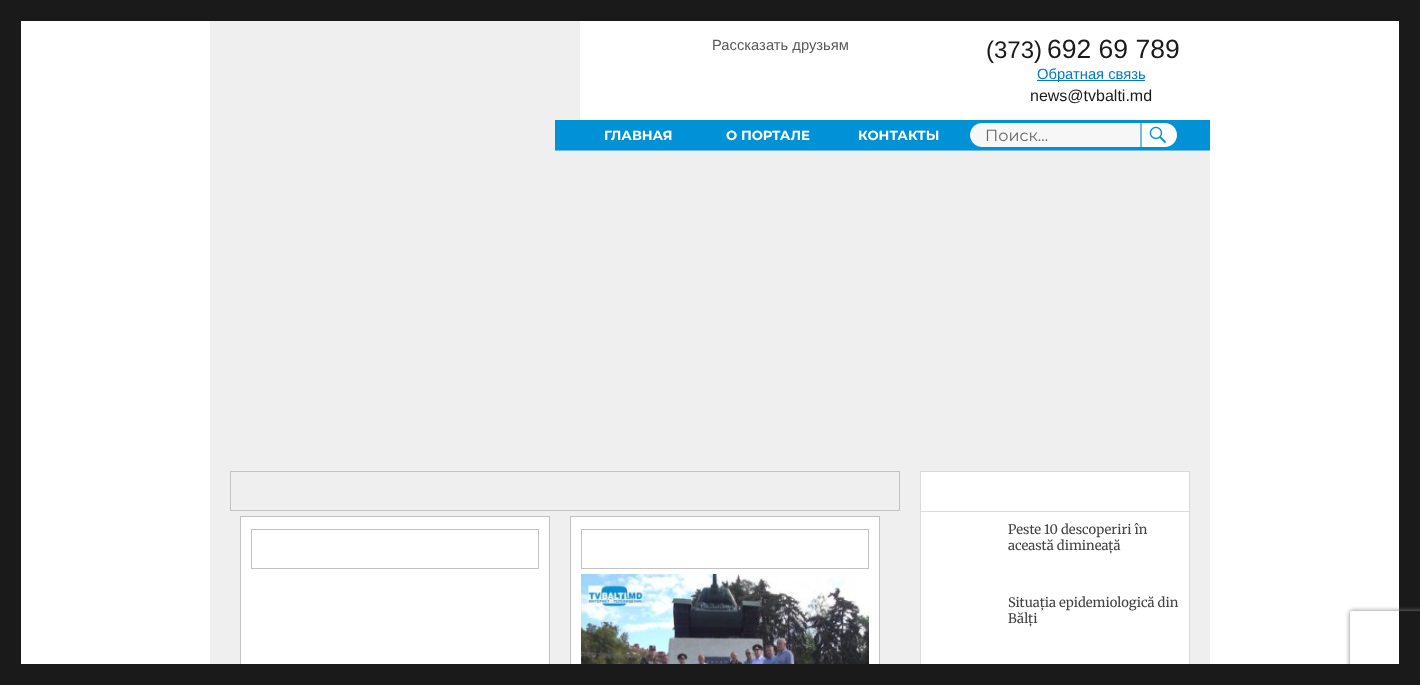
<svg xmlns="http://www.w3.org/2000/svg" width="1420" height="685">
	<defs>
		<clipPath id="clip1"><path d="M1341 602H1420V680H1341ZM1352 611H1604C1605 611 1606 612 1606 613V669C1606 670 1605 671 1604 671H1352C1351 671 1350 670 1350 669V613C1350 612 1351 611 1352 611Z" clip-rule="evenodd" /></clipPath>
	</defs>
	<rect width="100%" height="100%" fill="#1A1A1A" />
	<rect x="21" y="21" width="1378" height="643" fill="#FFFFFF" />
	<rect x="210" y="21" width="1000" height="643" fill="#EFEFEF" />
	<rect x="580" y="21" width="630" height="99" fill="#FFFFFF" />
	<text x="712" y="50" font-family="Liberation Sans" font-size="14.75" fill="#5A5A5A">Рассказать друзьям</text>
	<text x="986" y="58" font-family="Liberation Sans" font-size="24" fill="#1A1A1A">(373)</text>
	<text x="1047" y="58" font-family="Liberation Sans" font-size="26.5" fill="#1A1A1A">692 69 789</text>
	<rect x="1037" y="80" width="108" height="1" fill="#007ACC" />
	<text x="1037" y="79" font-family="Liberation Sans" font-size="14.75" fill="#007ACC">Обратная связь</text>
	<text x="1030" y="101" font-family="Liberation Sans" font-size="16" fill="#1A1A1A">news@tvbalti.md</text>
	<rect x="555" y="120" width="655" height="30" fill="#0091D6" />
	<rect x="555" y="150" width="655" height="1" fill="#70BDE2" />
	<g font-family="Montserrat" font-size="13.25" font-weight="700" fill="#FFFFFF">
		<text x="604" y="140">ГЛАВНАЯ</text>
		<text x="726" y="140">О ПОРТАЛЕ</text>
		<text x="858" y="140">КОНТАКТЫ</text>
	</g>
	<path d="M982 123H1140V147H982C975.5 147 970 141.5 970 135C970 128.5 975.5 123 982 123Z" fill="#F7F7F7" />
	<text x="985" y="141" font-family="Montserrat" font-size="16" fill="#686868">Поиск…</text>
	<path d="M1140 123H1165C1171.5 123 1177 128.5 1177 135C1177 141.5 1171.5 147 1165 147H1140Z" fill="#FFFFFF" />
	<rect x="1140" y="123" width="2" height="24" fill="#70BDE2" />
	<image x="1149" y="126" width="18" height="18" href="assets/img1.png" />
	<rect x="230.5" y="471.5" width="669" height="39" fill="none" stroke="#C2C2C2" />
	<rect x="241" y="517" width="308" height="147" fill="#FFFFFF" />
	<rect x="240.5" y="516.5" width="309" height="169" fill="none" stroke="#C2C2C2" />
	<rect x="251.5" y="529.5" width="287" height="39" fill="none" stroke="#C2C2C2" />
	<rect x="571" y="517" width="308" height="147" fill="#FFFFFF" />
	<rect x="570.5" y="516.5" width="309" height="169" fill="none" stroke="#C2C2C2" />
	<rect x="581.5" y="529.5" width="287" height="39" fill="none" stroke="#C2C2C2" />
	<image x="581" y="574" width="288" height="90" href="assets/img2.png" />
	<rect x="921" y="472" width="268" height="192" fill="#FFFFFF" />
	<rect x="920.5" y="471.5" width="269" height="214" fill="none" stroke="#DADADA" />
	<rect x="921" y="511" width="268" height="1" fill="#DADADA" />
	<g font-family="Merriweather" font-size="13" fill="#424242">
		<text x="1008" y="534">Peste 10 descoperiri în</text>
		<text x="1008" y="550">această dimineață</text>
		<text x="1008" y="607">Situația epidemiologică din</text>
		<text x="1008" y="623">Bălți</text>
	</g>
	<g clip-path="url(#clip1)">
		<rect x="1350" y="611" width="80" height="60" rx="2" fill="#808080" filter="blur(2.5px)" />
	</g>
	<rect x="240" y="664" width="1180" height="21" fill="#1A1A1A" />
</svg>
